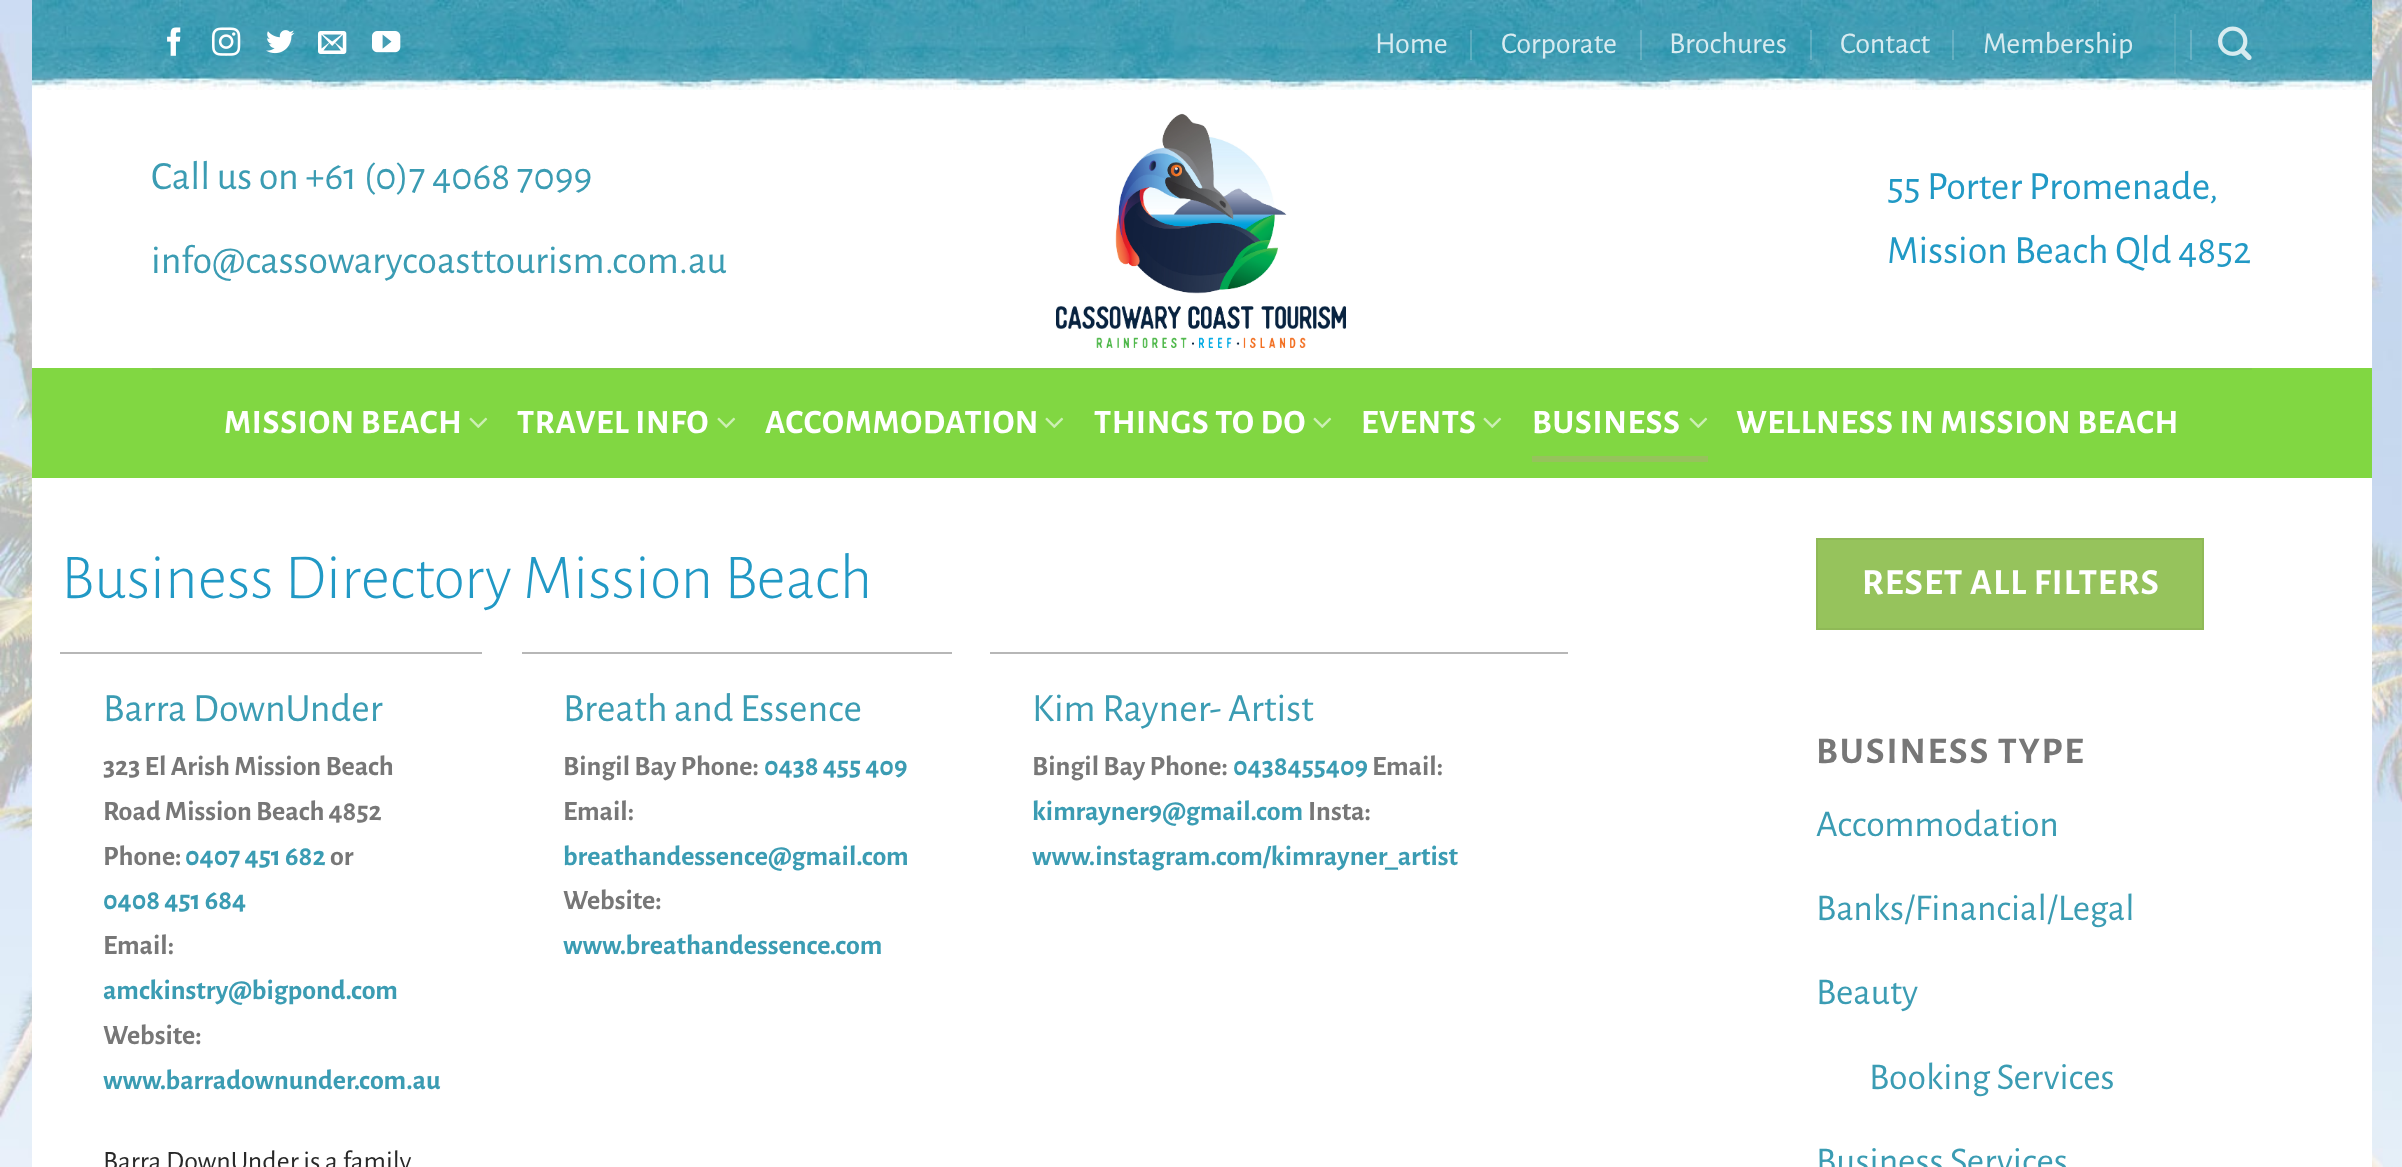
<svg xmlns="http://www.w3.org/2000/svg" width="2402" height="1167">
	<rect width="100%" height="100%" fill="#FFFFFF" />
	<image x="0" y="0" width="2402" height="1167" href="assets/img1.png" />
	<rect x="32" y="90" width="2340" height="1077" fill="#FFFFFF" />
	<image x="32" y="0" width="2340" height="90" href="assets/img2.png" />
	<image x="167" y="27" width="14" height="29" href="assets/img3.png" />
	<image x="212" y="27" width="29" height="29" href="assets/img4.png" />
	<image x="266" y="30" width="29" height="24" href="assets/img5.png" />
	<image x="318" y="31" width="29" height="23" href="assets/img6.png" />
	<image x="372" y="31" width="29" height="22" href="assets/img7.png" />
	<text x="1375" y="53" font-family="Alegreya Sans" font-size="30.25" fill="#D8EBF0">Home</text>
	<rect x="1470" y="30" width="2" height="30" fill="#FFFFFF" fill-opacity="0.2" />
	<text x="1501" y="53" font-family="Alegreya Sans" font-size="30.25" fill="#D8EBF0">Corporate</text>
	<rect x="1640" y="30" width="2" height="30" fill="#FFFFFF" fill-opacity="0.2" />
	<text x="1669" y="53" font-family="Alegreya Sans" font-size="30.25" fill="#D8EBF0">Brochures</text>
	<rect x="1810" y="30" width="2" height="30" fill="#FFFFFF" fill-opacity="0.2" />
	<text x="1840" y="53" font-family="Alegreya Sans" font-size="30.25" fill="#D8EBF0">Contact</text>
	<rect x="1952" y="30" width="2" height="30" fill="#FFFFFF" fill-opacity="0.2" />
	<text x="1983" y="53" font-family="Alegreya Sans" font-size="30.25" fill="#D8EBF0">Membership</text>
	<rect x="2174" y="14" width="2" height="60" fill="#FFFFFF" fill-opacity="0.1" />
	<rect x="2190" y="30" width="2" height="30" fill="#FFFFFF" fill-opacity="0.2" />
	<image x="2218" y="26" width="34" height="34" href="assets/img8.png" />
	<g font-family="Alegreya Sans" font-size="40.1" fill="#3B9CB3">
		<text x="151" y="189">Call us on +61 (0)7 4068 7099</text>
		<text x="151" y="273">info@cassowarycoasttourism.com.au</text>
	</g>
	<image x="1056" y="113" width="290" height="235" href="assets/img9.png" />
	<g font-family="Alegreya Sans" font-size="40.1" fill="#2199C5">
		<text x="1887" y="199">55 Porter Promenade,</text>
		<text x="1887" y="263">Mission Beach Qld 4852</text>
	</g>
	<rect x="32" y="368" width="2340" height="110" fill="#81D742" />
	<rect x="152" y="368" width="2100" height="2" fill="#80CD47" />
	<text x="224" y="433" font-family="Alegreya Sans" font-size="34" font-weight="700" letter-spacing="0.7" fill="#FFFFFF">MISSION BEACH</text>
	<image x="469" y="417" width="19" height="11" href="assets/img10.png" />
	<text x="517" y="433" font-family="Alegreya Sans" font-size="34" font-weight="700" letter-spacing="0.7" fill="#FFFFFF">TRAVEL INFO</text>
	<image x="717" y="417" width="19" height="11" href="assets/img10.png" />
	<text x="765" y="433" font-family="Alegreya Sans" font-size="34" font-weight="700" letter-spacing="0.7" fill="#FFFFFF">ACCOMMODATION</text>
	<image x="1045" y="417" width="19" height="11" href="assets/img10.png" />
	<text x="1094" y="433" font-family="Alegreya Sans" font-size="34" font-weight="700" letter-spacing="0.7" fill="#FFFFFF">THINGS TO DO</text>
	<image x="1313" y="417" width="19" height="11" href="assets/img10.png" />
	<text x="1361" y="433" font-family="Alegreya Sans" font-size="34" font-weight="700" letter-spacing="0.7" fill="#FFFFFF">EVENTS</text>
	<image x="1483" y="417" width="19" height="11" href="assets/img10.png" />
	<text x="1532" y="433" font-family="Alegreya Sans" font-size="34" font-weight="700" letter-spacing="0.7" fill="#FFFFFF">BUSINESS</text>
	<image x="1689" y="417" width="19" height="11" href="assets/img10.png" />
	<rect x="1532" y="456" width="176" height="6" fill="#96C35C" />
	<text x="1736" y="433" font-family="Alegreya Sans" font-size="34" font-weight="700" letter-spacing="0.7" fill="#FFFFFF">WELLNESS IN MISSION BEACH</text>
	<text x="61" y="598" font-family="Alegreya Sans" font-size="64.25" font-weight="300" fill="#2199C5">Business Directory Mission Beach</text>
	<rect x="60" y="652" width="422" height="2" fill="#B7B7B7" />
	<text x="103" y="721" font-family="Alegreya Sans" font-size="40" fill="#3B9CB3">Barra DownUnder</text>
	<g font-family="Alegreya Sans" font-size="28" font-weight="700" fill="#777777">
		<text x="103" y="775">323 El Arish Mission Beach</text>
		<text x="103" y="820">Road Mission Beach 4852</text>
		<text x="103" y="865">Phone:</text>
	</g>
	<text x="185" y="865" font-family="Alegreya Sans" font-size="28" font-weight="700" fill="#3B9CB3">0407 451 682</text>
	<text x="330" y="865" font-family="Alegreya Sans" font-size="28" font-weight="700" fill="#777777">or</text>
	<text x="103" y="909" font-family="Alegreya Sans" font-size="28" font-weight="700" fill="#3B9CB3">0408 451 684</text>
	<text x="103" y="954" font-family="Alegreya Sans" font-size="28" font-weight="700" fill="#777777">Email:</text>
	<text x="103" y="999" font-family="Alegreya Sans" font-size="28" font-weight="700" fill="#3B9CB3">amckinstry@bigpond.com</text>
	<text x="103" y="1044" font-family="Alegreya Sans" font-size="28" font-weight="700" fill="#777777">Website:</text>
	<text x="103" y="1089" font-family="Alegreya Sans" font-size="28" font-weight="700" fill="#3B9CB3">www.barradownunder.com.au</text>
	<text x="103" y="1170" font-family="Alegreya Sans" font-size="28" fill="#282828">Barra DownUnder is a family</text>
	<rect x="522" y="652" width="430" height="2" fill="#B7B7B7" />
	<text x="563" y="721" font-family="Alegreya Sans" font-size="40" fill="#3B9CB3">Breath and Essence</text>
	<text x="563" y="775" font-family="Alegreya Sans" font-size="28" font-weight="700" fill="#777777">Bingil Bay Phone:</text>
	<text x="764" y="775" font-family="Alegreya Sans" font-size="28" font-weight="700" fill="#3B9CB3">0438 455 409</text>
	<text x="563" y="820" font-family="Alegreya Sans" font-size="28" font-weight="700" fill="#777777">Email:</text>
	<text x="563" y="865" font-family="Alegreya Sans" font-size="28" font-weight="700" fill="#3B9CB3">breathandessence@gmail.com</text>
	<text x="563" y="909" font-family="Alegreya Sans" font-size="28" font-weight="700" fill="#777777">Website:</text>
	<text x="563" y="954" font-family="Alegreya Sans" font-size="28" font-weight="700" fill="#3B9CB3">www.breathandessence.com</text>
	<rect x="990" y="652" width="578" height="2" fill="#B7B7B7" />
	<text x="1032" y="721" font-family="Alegreya Sans" font-size="40" fill="#3B9CB3">Kim Rayner- Artist</text>
	<text x="1032" y="775" font-family="Alegreya Sans" font-size="28" font-weight="700" fill="#777777">Bingil Bay Phone:</text>
	<text x="1233" y="775" font-family="Alegreya Sans" font-size="28" font-weight="700" fill="#3B9CB3">0438455409</text>
	<text x="1372" y="775" font-family="Alegreya Sans" font-size="28" font-weight="700" fill="#777777">Email:</text>
	<text x="1032" y="820" font-family="Alegreya Sans" font-size="28" font-weight="700" fill="#3B9CB3">kimrayner9@gmail.com</text>
	<text x="1308" y="820" font-family="Alegreya Sans" font-size="28" font-weight="700" fill="#777777">Insta:</text>
	<text x="1032" y="865" font-family="Alegreya Sans" font-size="28" font-weight="700" fill="#3B9CB3">www.instagram.com/kimrayner_artist</text>
	<rect x="1817" y="539" width="386" height="90" fill="#96C35C" stroke="#8FB957" stroke-width="2" />
	<text x="1862" y="594" font-family="Alegreya Sans" font-size="36.75" font-weight="700" letter-spacing="1.1" fill="#FFFFFF">RESET ALL FILTERS</text>
	<text x="1816" y="763" font-family="Alegreya Sans" font-size="37.75" font-weight="700" letter-spacing="1.9" fill="#777777">BUSINESS TYPE</text>
	<g font-family="Alegreya Sans" font-size="37.75" fill="#3B9CB3">
		<text x="1816" y="836">Accommodation</text>
		<text x="1816" y="920">Banks/Financial/Legal</text>
		<text x="1816" y="1004">Beauty</text>
		<text x="1869" y="1089">Booking Services</text>
		<text x="1816" y="1173">Business Services</text>
	</g>
</svg>
